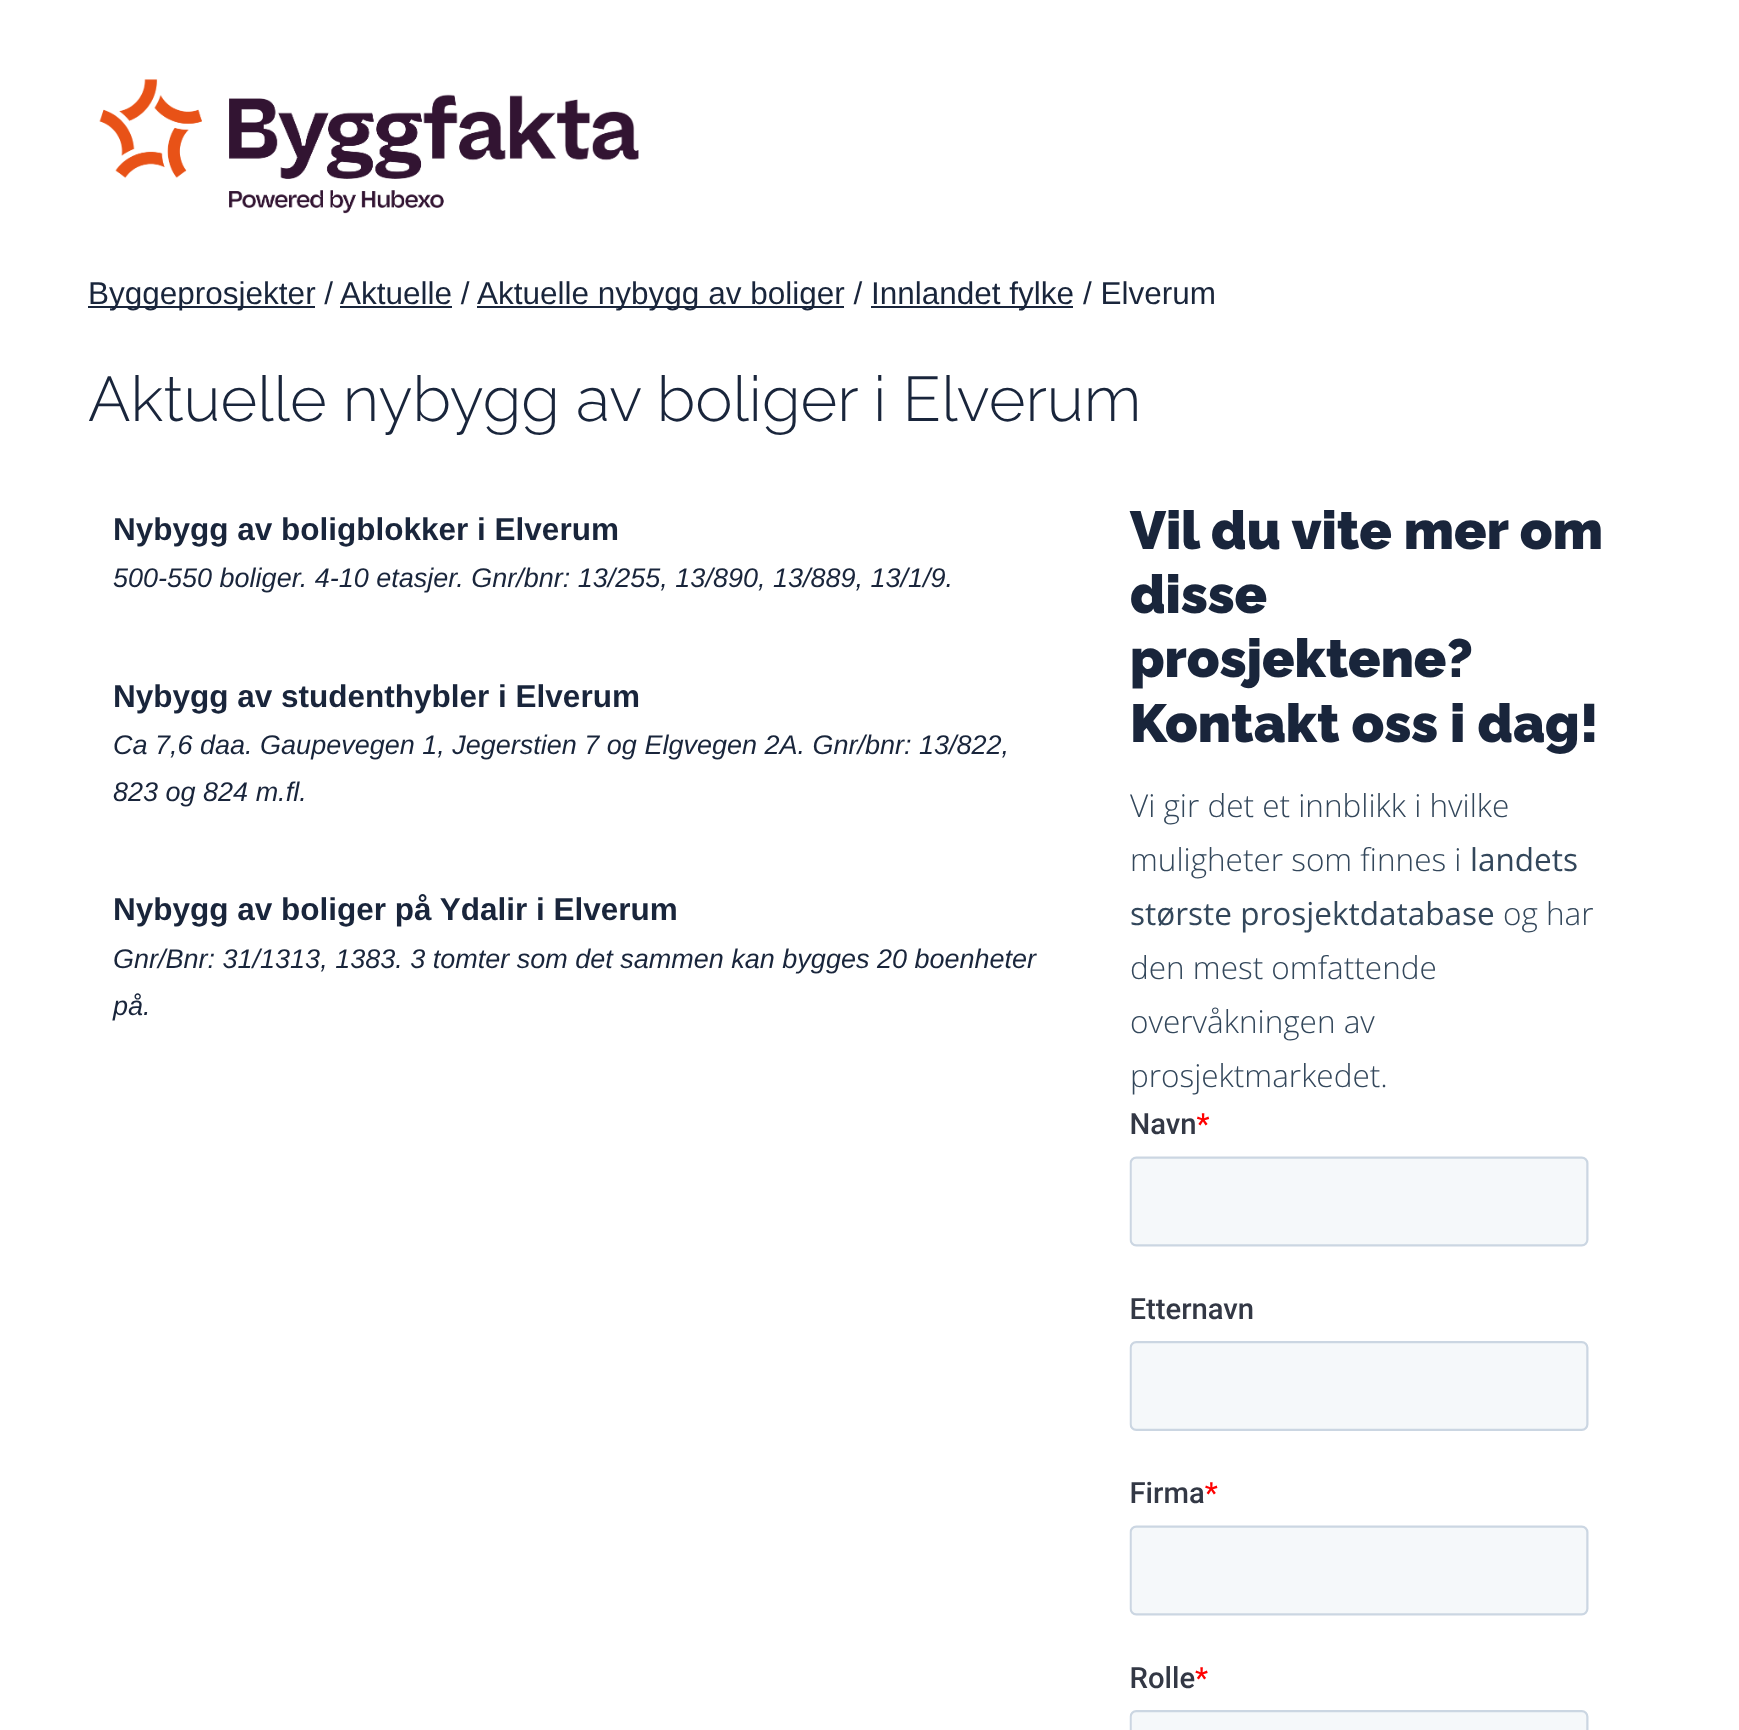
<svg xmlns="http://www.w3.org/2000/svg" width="1739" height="1730">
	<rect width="100%" height="100%" fill="#FFFFFF" />
	<image x="99" y="79" width="540" height="135" href="assets/img1.png" />
	<rect x="88" y="306" width="227" height="2" fill="#19253B" />
	<g font-family="Liberation Sans" font-size="31.5" fill="#19253B">
		<text x="88" y="304">Byggeprosjekter /</text>
		<text x="340" y="304">Aktuelle /</text>
	</g>
	<rect x="340" y="306" width="112" height="2" fill="#19253B" />
	<rect x="477" y="306" width="367" height="2" fill="#19253B" />
	<text x="477" y="304" font-family="Liberation Sans" font-size="31.5" fill="#19253B">Aktuelle nybygg av boliger /</text>
	<rect x="871" y="306" width="202" height="2" fill="#19253B" />
	<text x="871" y="304" font-family="Liberation Sans" font-size="31.5" fill="#19253B">Innlandet fylke / Elverum</text>
	<text x="88" y="421" font-family="Raleway" font-size="63" font-weight="300" fill="#19253B">Aktuelle nybygg av boliger i Elverum</text>
	<text x="113" y="540" font-family="Liberation Sans" font-size="31.5" font-weight="700" fill="#19253B">Nybygg av boligblokker i Elverum</text>
	<text x="113" y="587" font-family="Liberation Sans" font-size="27" font-style="italic" fill="#19253B">500-550 boliger. 4-10 etasjer. Gnr/bnr: 13/255, 13/890, 13/889, 13/1/9.</text>
	<text x="113" y="707" font-family="Liberation Sans" font-size="31.5" font-weight="700" fill="#19253B">Nybygg av studenthybler i Elverum</text>
	<g font-family="Liberation Sans" font-size="27" font-style="italic" fill="#19253B">
		<text x="113" y="754">Ca 7,6 daa. Gaupevegen 1, Jegerstien 7 og Elgvegen 2A. Gnr/bnr: 13/822,</text>
		<text x="113" y="801">823 og 824 m.fl.</text>
	</g>
	<text x="113" y="920" font-family="Liberation Sans" font-size="31.5" font-weight="700" fill="#19253B">Nybygg av boliger på Ydalir i Elverum</text>
	<g font-family="Liberation Sans" font-size="27" font-style="italic" fill="#19253B">
		<text x="113" y="968">Gnr/Bnr: 31/1313, 1383. 3 tomter som det sammen kan bygges 20 boenheter</text>
		<text x="113" y="1015">på.</text>
	</g>
	<g font-family="Raleway" font-size="53.5" font-weight="900" fill="#19253B">
		<text x="1130" y="549">Vil du vite mer om</text>
		<text x="1130" y="613">disse</text>
		<text x="1130" y="677">prosjektene?</text>
		<text x="1130" y="742">Kontakt oss i dag!</text>
	</g>
	<g font-family="Open Sans" font-size="31.5" font-weight="300" fill="#33475B">
		<text x="1130" y="817">Vi gir det et innblikk i hvilke</text>
		<text x="1130" y="871">muligheter som finnes i</text>
	</g>
	<g font-family="Open Sans" font-size="31.5" fill="#33475B">
		<text x="1470" y="871">landets</text>
		<text x="1130" y="925">største prosjektdatabase</text>
	</g>
	<g font-family="Open Sans" font-size="31.5" font-weight="300" fill="#33475B">
		<text x="1503" y="925">og har</text>
		<text x="1130" y="979">den mest omfattende</text>
		<text x="1130" y="1033">overvåkningen av</text>
		<text x="1130" y="1087">prosjektmarkedet.</text>
	</g>
	<image x="1129" y="1113" width="460" height="617" href="assets/img2.png" />
</svg>
